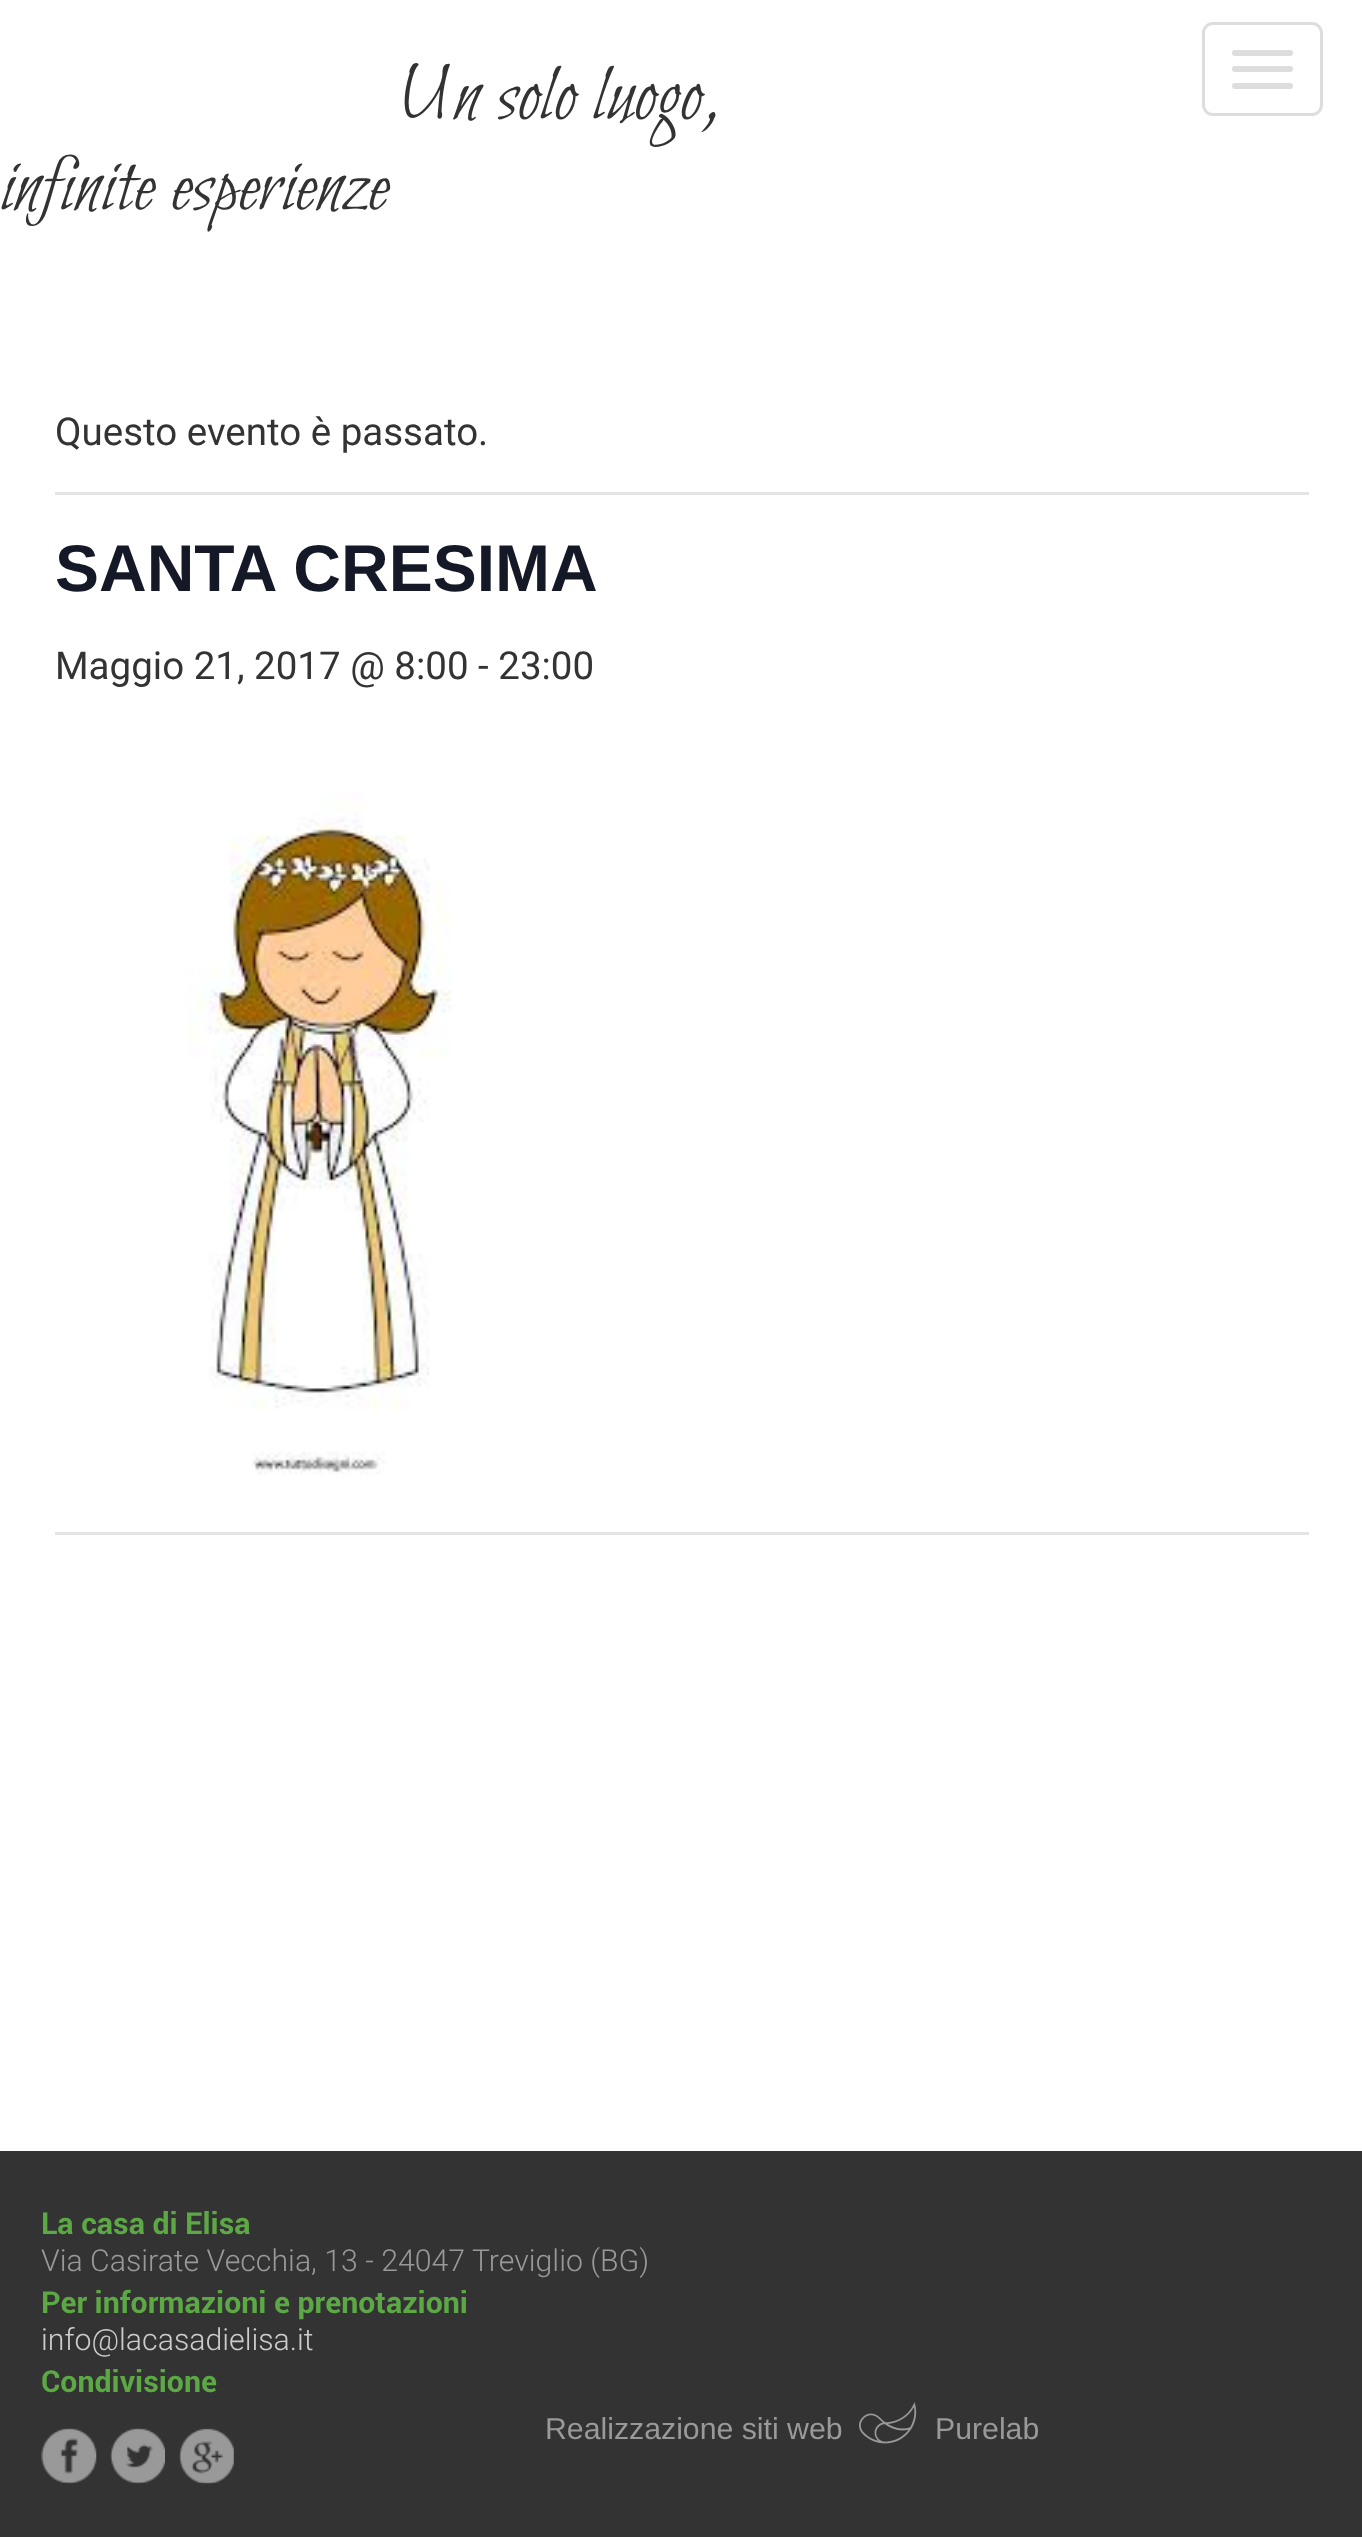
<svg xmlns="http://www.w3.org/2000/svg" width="1362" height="2537">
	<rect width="100%" height="100%" fill="#FFFFFF" />
	<g font-family="Bilbo" font-size="82.5" fill="#333333">
		<text x="400" y="118">Un solo luogo,</text>
		<text x="0" y="209">infinite esperienze</text>
	</g>
	<rect x="1203.5" y="23.5" width="118" height="91" rx="9.5" fill="none" stroke="#DDDDDD" stroke-width="3" />
	<rect x="1232" y="50" width="61" height="6" rx="3" fill="#DDDDDD" />
	<rect x="1232" y="66" width="61" height="6" rx="3" fill="#DDDDDD" />
	<rect x="1232" y="83" width="61" height="6" rx="3" fill="#DDDDDD" />
	<rect x="55" y="492" width="1254" height="3" fill="#E4E4E4" />
	<text x="55" y="445" font-family="Roboto" font-size="38.5" fill="#333333">Questo evento è passato.</text>
	<text x="55" y="591" font-family="Liberation Sans" font-size="66" font-weight="700" fill="#141827">SANTA CRESIMA</text>
	<text x="55" y="679" font-family="Roboto" font-size="38.5" fill="#333333">Maggio 21, 2017 @ 8:00 - 23:00</text>
	<image x="187" y="793" width="265" height="682" href="assets/img1.png" />
	<rect x="55" y="1532" width="1254" height="3" fill="#E4E4E4" />
	<rect x="0" y="2151" width="1362" height="386" fill="#333333" />
	<text x="41" y="2234" font-family="Roboto" font-size="30.25" font-weight="700" fill="#5CA845">La casa di Elisa</text>
	<text x="41" y="2271" font-family="Roboto" font-size="30.25" font-weight="300" fill="#999999">Via Casirate Vecchia, 13 - 24047 Treviglio (BG)</text>
	<text x="41" y="2313" font-family="Roboto" font-size="30.25" font-weight="700" fill="#5CA845">Per informazioni e prenotazioni</text>
	<text x="41" y="2350" font-family="Roboto" font-size="30.25" font-weight="300" fill="#CCCCCC">info@lacasadielisa.it</text>
	<text x="41" y="2392" font-family="Roboto" font-size="30.25" font-weight="700" fill="#5CA845">Condivisione</text>
	<image x="41" y="2428" width="56" height="56" href="assets/img2.png" />
	<image x="110" y="2428" width="55" height="56" href="assets/img3.png" />
	<image x="179" y="2428" width="55" height="56" href="assets/img4.png" />
	<text x="545" y="2439" font-family="Liberation Sans" font-size="30.25" fill="#999999">Realizzazione siti web</text>
	<image x="859" y="2402" width="58" height="42" href="assets/img5.png" />
	<text x="935" y="2439" font-family="Liberation Sans" font-size="30.25" fill="#999999">Purelab</text>
</svg>
